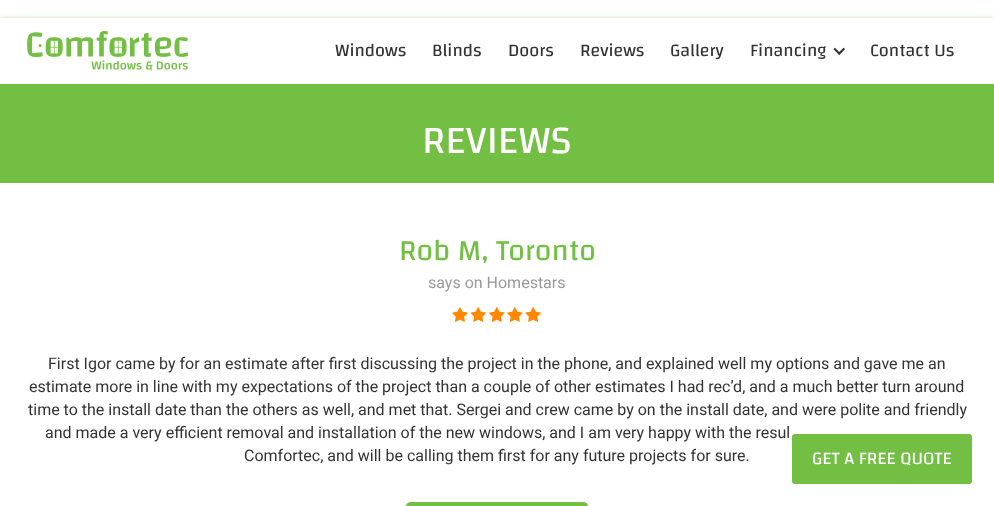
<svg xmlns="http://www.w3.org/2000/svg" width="994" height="506">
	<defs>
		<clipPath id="clip1"><path d="M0 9H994V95H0ZM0 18H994V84H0Z" clip-rule="evenodd" /></clipPath>
	</defs>
	<rect width="100%" height="100%" fill="#FFFFFF" />
	<rect x="0" y="84" width="994" height="99" fill="#72BF44" />
	<g clip-path="url(#clip1)">
		<rect x="-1" y="18" width="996" height="68" fill="#72BF44" fill-opacity="0.4" filter="blur(2.5px)" />
	</g>
	<image x="27" y="31" width="161" height="40" href="assets/img1.png" />
	<g font-family="Changa" font-size="18" fill="#333333">
		<text x="335" y="56">Windows</text>
		<text x="432" y="56">Blinds</text>
		<text x="508" y="56">Doors</text>
		<text x="580" y="56">Reviews</text>
		<text x="670" y="56">Gallery</text>
		<text x="750" y="56">Financing</text>
	</g>
	<image x="833" y="47" width="12" height="9" href="assets/img2.png" />
	<text x="870" y="56" font-family="Changa" font-size="18" fill="#333333">Contact Us</text>
	<text x="422" y="153" font-family="Changa" font-size="40" fill="#FFFFFF">REVIEWS</text>
	<text x="399" y="260" font-family="Changa" font-size="30" fill="#72BF44">Rob M, Toronto</text>
	<text x="428" y="288" font-family="Roboto" font-size="16" fill="#999999">says on Homestars</text>
	<image x="452" y="307" width="89" height="15" href="assets/img3.png" />
	<g font-family="Roboto" font-size="16" fill="#333333">
		<text x="48" y="369">First Igor came by for an estimate after first discussing the project in the phone, and explained well my options and gave me an</text>
		<text x="29" y="392">estimate more in line with my expectations of the project than a couple of other estimates I had rec’d, and a much better turn around</text>
		<text x="28" y="415">time to the install date than the others as well, and met that. Sergei and crew came by on the install date, and were polite and friendly</text>
		<text x="45" y="438">and made a very efficient removal and installation of the new windows, and I am very happy with the resul</text>
		<text x="244" y="461">Comfortec, and will be calling them first for any future projects for sure.</text>
	</g>
	<rect x="406" y="502" width="182" height="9" rx="5" fill="#72BF44" />
	<rect x="791" y="433" width="182" height="52" rx="4" fill="#72BF44" stroke="#FFFFFF" stroke-width="2" />
	<text x="812" y="464" font-family="Changa" font-size="18" fill="#FFFFFF">GET A FREE QUOTE</text>
</svg>
